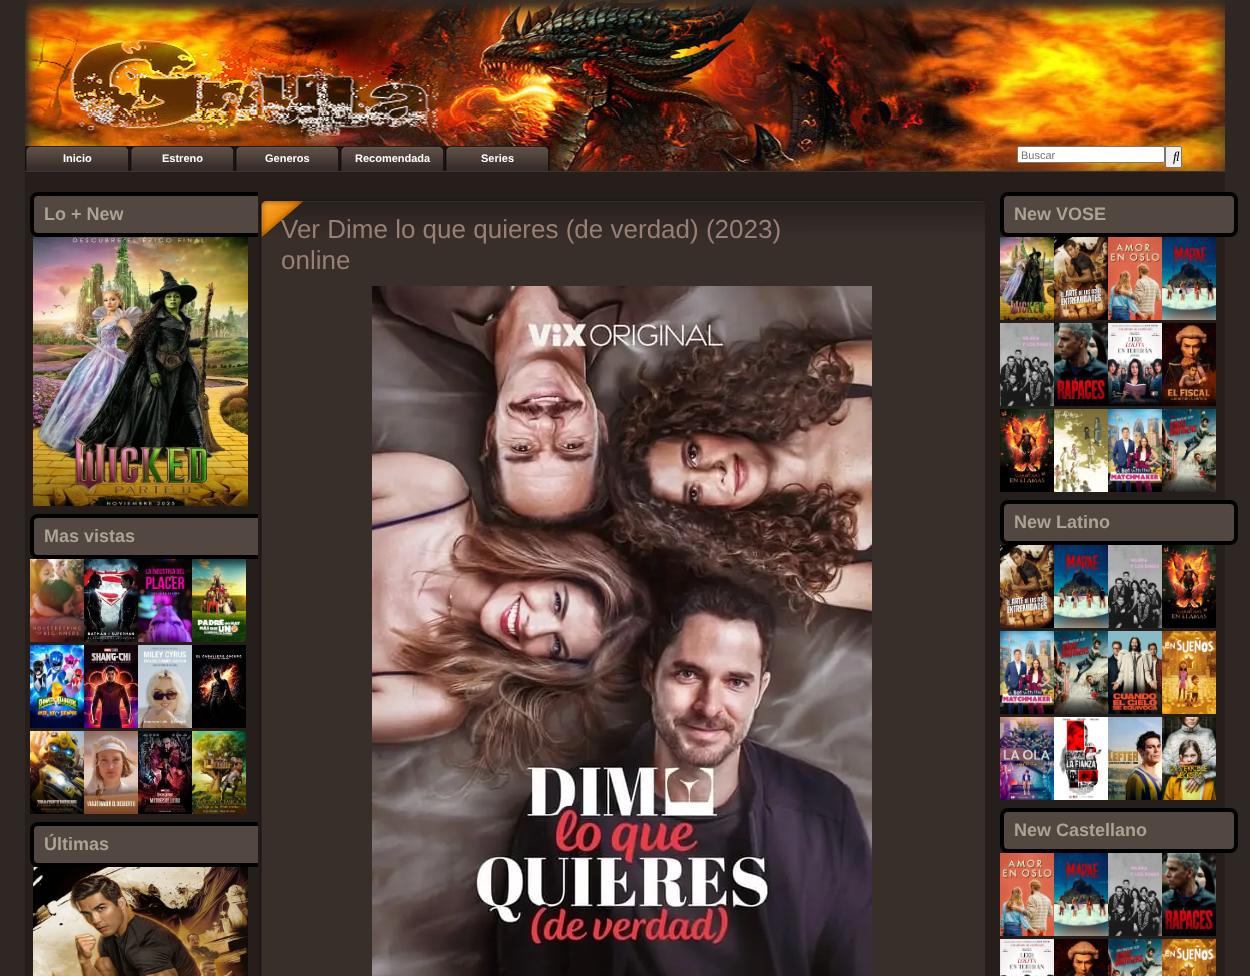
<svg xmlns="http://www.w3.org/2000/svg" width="1250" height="976">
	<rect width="100%" height="100%" fill="#2F2723" />
	<image x="25" y="0" width="1200" height="116" href="assets/img1.png" />
	<image x="25" y="116" width="1200" height="55" href="assets/img2.png" />
	<image x="25" y="146" width="105" height="25" href="assets/img3.png" />
	<text x="63" y="162" font-family="Liberation Sans" font-size="11" font-weight="700" fill="#FFFFFF">Inicio</text>
	<image x="130" y="146" width="105" height="25" href="assets/img3.png" />
	<text x="162" y="162" font-family="Liberation Sans" font-size="11" font-weight="700" fill="#FFFFFF">Estreno</text>
	<image x="235" y="146" width="105" height="25" href="assets/img3.png" />
	<text x="265" y="162" font-family="Liberation Sans" font-size="11" font-weight="700" fill="#FFFFFF">Generos</text>
	<image x="340" y="146" width="105" height="25" href="assets/img3.png" />
	<text x="355" y="162" font-family="Liberation Sans" font-size="11" font-weight="700" fill="#FFFFFF">Recomendada</text>
	<image x="445" y="146" width="105" height="25" href="assets/img3.png" />
	<text x="481" y="162" font-family="Liberation Sans" font-size="11" font-weight="700" fill="#FFFFFF">Series</text>
	<rect x="1017.5" y="146.5" width="147" height="16" rx="1.5" fill="#FFFFFF" stroke="#767676" />
	<text x="1021" y="159" font-family="Liberation Sans" font-size="11" fill="#757575">Buscar</text>
	<rect x="1165.5" y="146.5" width="16" height="21" rx="1.5" fill="#EFEFEF" stroke="#767676" />
	<image x="1173" y="151" width="7" height="13" href="assets/img4.png" />
	<rect x="25" y="172" width="1200" height="804" fill="#251E1B" />
	<rect x="25" y="171" width="1200" height="1" fill="#3B3430" />
	<rect x="32" y="194" width="234" height="41" rx="6" fill="#524741" stroke="#000000" stroke-width="4" />
	<text x="44" y="220" font-family="Liberation Sans" font-size="18" font-weight="700" fill="#ACA394">Lo + New</text>
	<image x="33" y="237" width="215" height="269" href="assets/img5.png" />
	<rect x="32" y="516" width="234" height="41" rx="6" fill="#524741" stroke="#000000" stroke-width="4" />
	<text x="44" y="542" font-family="Liberation Sans" font-size="18" font-weight="700" fill="#ACA394">Mas vistas</text>
	<image x="30" y="559" width="54" height="83" href="assets/img6.png" />
	<image x="84" y="559" width="54" height="83" href="assets/img7.png" />
	<image x="138" y="559" width="54" height="83" href="assets/img8.png" />
	<image x="192" y="559" width="54" height="83" href="assets/img9.png" />
	<image x="30" y="645" width="54" height="83" href="assets/img10.png" />
	<image x="84" y="645" width="54" height="83" href="assets/img11.png" />
	<image x="138" y="645" width="54" height="83" href="assets/img12.png" />
	<image x="192" y="645" width="54" height="83" href="assets/img13.png" />
	<image x="30" y="731" width="54" height="83" href="assets/img14.png" />
	<image x="84" y="731" width="54" height="83" href="assets/img15.png" />
	<image x="138" y="731" width="54" height="83" href="assets/img16.png" />
	<image x="192" y="731" width="54" height="83" href="assets/img17.png" />
	<rect x="32" y="824" width="234" height="41" rx="6" fill="#524741" stroke="#000000" stroke-width="4" />
	<text x="44" y="850" font-family="Liberation Sans" font-size="18" font-weight="700" fill="#ACA394">Últimas</text>
	<image x="33" y="867" width="215" height="109" href="assets/img18.png" />
	<rect x="1002" y="194" width="234" height="41" rx="6" fill="#524741" stroke="#000000" stroke-width="4" />
	<text x="1014" y="220" font-family="Liberation Sans" font-size="18" font-weight="700" fill="#ACA394">New VOSE</text>
	<image x="1000" y="237" width="54" height="83" href="assets/img19.png" />
	<image x="1054" y="237" width="54" height="83" href="assets/img20.png" />
	<image x="1108" y="237" width="54" height="83" href="assets/img21.png" />
	<image x="1162" y="237" width="54" height="83" href="assets/img22.png" />
	<image x="1000" y="323" width="54" height="83" href="assets/img23.png" />
	<image x="1054" y="323" width="54" height="83" href="assets/img24.png" />
	<image x="1108" y="323" width="54" height="83" href="assets/img25.png" />
	<image x="1162" y="323" width="54" height="83" href="assets/img26.png" />
	<image x="1000" y="409" width="54" height="83" href="assets/img27.png" />
	<image x="1054" y="409" width="54" height="83" href="assets/img28.png" />
	<image x="1108" y="409" width="54" height="83" href="assets/img29.png" />
	<image x="1162" y="409" width="54" height="83" href="assets/img30.png" />
	<rect x="1002" y="502" width="234" height="41" rx="6" fill="#524741" stroke="#000000" stroke-width="4" />
	<text x="1014" y="528" font-family="Liberation Sans" font-size="18" font-weight="700" fill="#ACA394">New Latino</text>
	<image x="1000" y="545" width="54" height="83" href="assets/img31.png" />
	<image x="1054" y="545" width="54" height="83" href="assets/img22.png" />
	<image x="1108" y="545" width="54" height="83" href="assets/img32.png" />
	<image x="1162" y="545" width="54" height="83" href="assets/img33.png" />
	<image x="1000" y="631" width="54" height="83" href="assets/img34.png" />
	<image x="1054" y="631" width="54" height="83" href="assets/img30.png" />
	<image x="1108" y="631" width="54" height="83" href="assets/img35.png" />
	<image x="1162" y="631" width="54" height="83" href="assets/img36.png" />
	<image x="1000" y="717" width="54" height="83" href="assets/img37.png" />
	<image x="1054" y="717" width="54" height="83" href="assets/img38.png" />
	<image x="1108" y="717" width="54" height="83" href="assets/img39.png" />
	<image x="1162" y="717" width="54" height="83" href="assets/img40.png" />
	<rect x="1002" y="810" width="234" height="41" rx="6" fill="#524741" stroke="#000000" stroke-width="4" />
	<text x="1014" y="836" font-family="Liberation Sans" font-size="18" font-weight="700" fill="#ACA394">New Castellano</text>
	<image x="1000" y="853" width="54" height="83" href="assets/img41.png" />
	<image x="1054" y="853" width="54" height="83" href="assets/img22.png" />
	<image x="1108" y="853" width="54" height="83" href="assets/img32.png" />
	<image x="1162" y="853" width="54" height="83" href="assets/img24.png" />
	<image x="1000" y="939" width="54" height="37" href="assets/img42.png" />
	<image x="1054" y="939" width="54" height="37" href="assets/img43.png" />
	<image x="1108" y="939" width="54" height="37" href="assets/img44.png" />
	<image x="1162" y="939" width="54" height="37" href="assets/img45.png" />
	<image x="258" y="192" width="727" height="45" href="assets/img46.png" />
	<image x="258" y="237" width="727" height="739" href="assets/img47.png" />
	<g font-family="Liberation Sans" font-size="26" fill="#998076">
		<text x="281" y="238">Ver Dime lo que quieres (de verdad) (2023)</text>
		<text x="281" y="269">online</text>
	</g>
	<image x="372" y="286" width="500" height="690" href="assets/img48.png" />
</svg>
